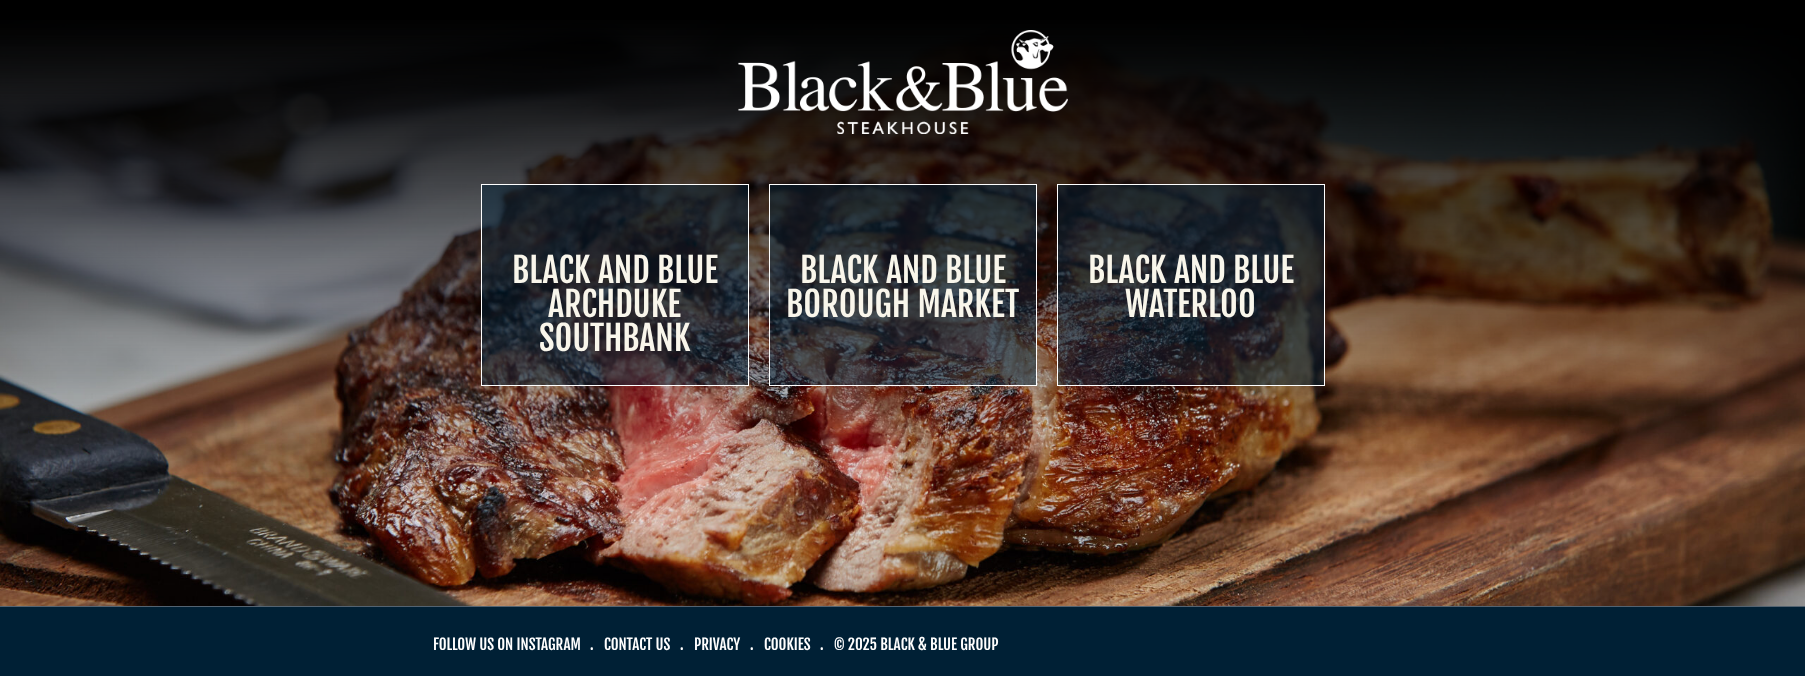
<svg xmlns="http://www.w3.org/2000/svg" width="1805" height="676">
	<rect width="100%" height="100%" fill="#002035" />
	<image x="0" y="20" width="1805" height="586" href="assets/img2.png" />
	<image x="0" y="0" width="1805" height="477" href="assets/img1.png" />
	<image x="738" y="30" width="330" height="104" href="assets/img3.png" />
	<rect x="481.5" y="184.5" width="267" height="201" fill="none" stroke="#FFFFFF" />
	<rect x="482" y="185" width="266" height="200" fill="#002035" fill-opacity="0.5" />
	<g font-family="Fjalla One" font-size="34" fill="#F9F6EB">
		<text x="512" y="283">BLACK AND BLUE</text>
		<text x="548" y="317">ARCHDUKE</text>
		<text x="539" y="351">SOUTHBANK</text>
	</g>
	<rect x="769.5" y="184.5" width="267" height="201" fill="none" stroke="#FFFFFF" />
	<rect x="770" y="185" width="266" height="200" fill="#002035" fill-opacity="0.5" />
	<g font-family="Fjalla One" font-size="34" fill="#F9F6EB">
		<text x="800" y="283">BLACK AND BLUE</text>
		<text x="786" y="317">BOROUGH MARKET</text>
	</g>
	<rect x="1057.5" y="184.5" width="267" height="201" fill="none" stroke="#FFFFFF" />
	<rect x="1058" y="185" width="266" height="200" fill="#002035" fill-opacity="0.5" />
	<g font-family="Fjalla One" font-size="34" fill="#F9F6EB">
		<text x="1088" y="283">BLACK AND BLUE</text>
		<text x="1125" y="317">WATERLOO</text>
	</g>
	<rect x="0" y="606" width="1805" height="1" fill="#536371" />
	<g font-family="Fjalla One" font-size="15" fill="#FFFFFF">
		<text x="433" y="650">FOLLOW US ON INSTAGRAM</text>
		<text x="590" y="650">.</text>
		<text x="604" y="650">CONTACT US</text>
		<text x="680" y="650">.</text>
		<text x="694" y="650">PRIVACY</text>
		<text x="750" y="650">.</text>
		<text x="764" y="650">COOKIES</text>
		<text x="820" y="650">.</text>
		<text x="834" y="650">© 2025 BLACK &amp; BLUE GROUP</text>
	</g>
</svg>
